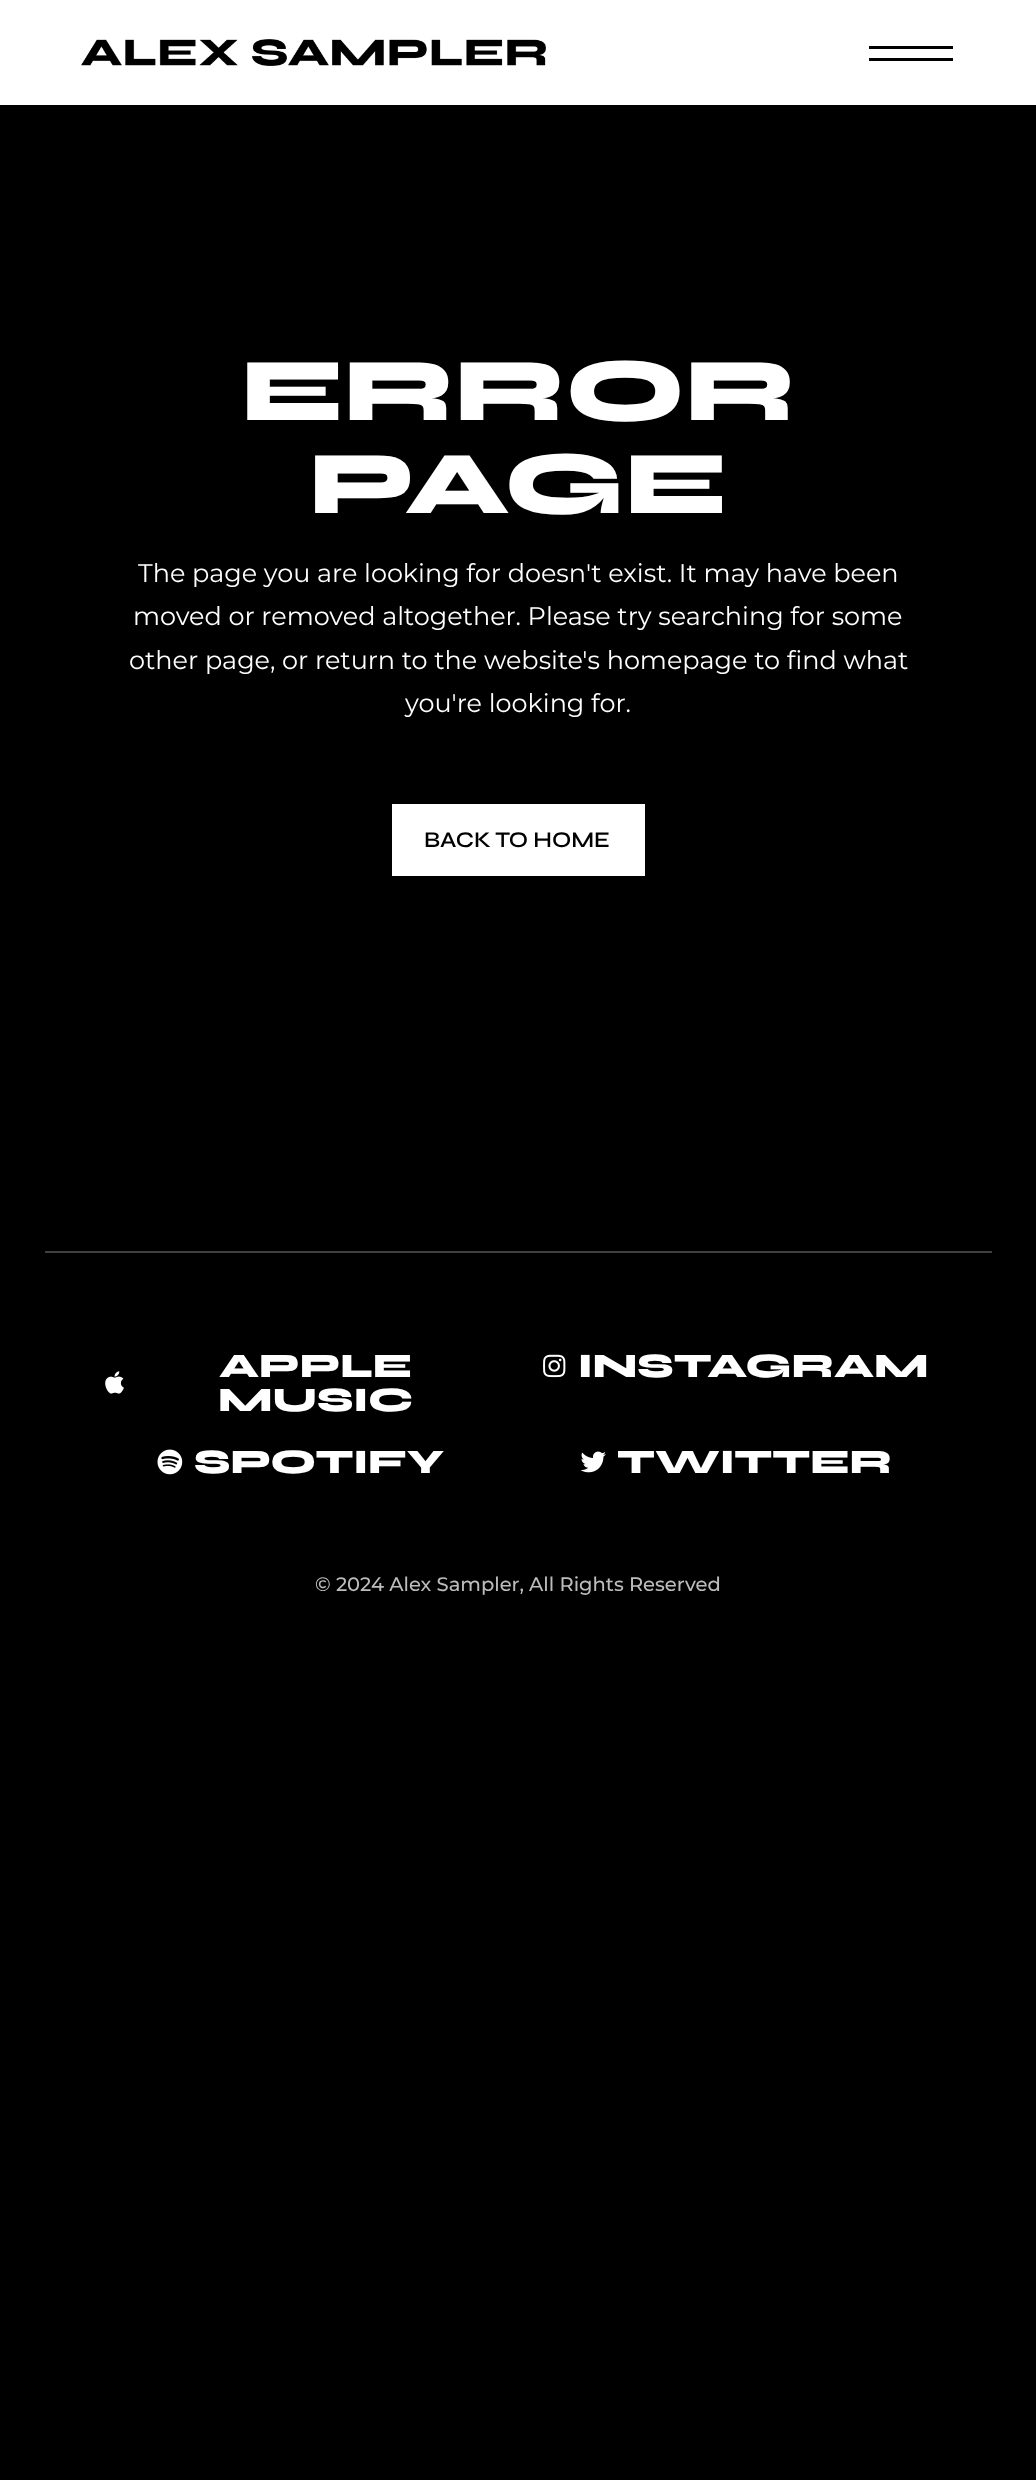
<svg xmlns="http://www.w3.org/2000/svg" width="1036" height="2480">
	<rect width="100%" height="100%" fill="#000000" />
	<rect x="0" y="0" width="1036" height="105" fill="#FFFFFF" />
	<image x="81" y="39" width="465" height="27" href="assets/img1.png" />
	<rect x="869" y="46" width="84" height="3" fill="#000000" />
	<rect x="869" y="58" width="84" height="3" fill="#000000" />
	<g font-family="Syne" font-size="90" font-weight="800" fill="#FFFFFF">
		<text x="241" y="420">ERROR</text>
		<text x="309" y="513">PAGE</text>
	</g>
	<g font-family="Montserrat" font-size="25.5" fill="#FFFFFF">
		<text x="138" y="582">The page you are looking for doesn't exist. It may have been</text>
		<text x="133" y="625">moved or removed altogether. Please try searching for some</text>
		<text x="129" y="669">other page, or return to the website's homepage to find what</text>
		<text x="405" y="712">you're looking for.</text>
	</g>
	<rect x="393" y="805" width="251" height="70" fill="none" stroke="#FFFFFF" stroke-width="2" />
	<rect x="394" y="806" width="249" height="68" fill="#FFFFFF" />
	<text x="424" y="847" font-family="Syne" font-size="22.5" font-weight="600" fill="#000000">BACK TO HOME</text>
	<rect x="45" y="1251" width="947" height="2" fill="#404040" />
	<image x="105" y="1371" width="19" height="23" href="assets/img2.png" />
	<g font-family="Syne" font-size="34.5" font-weight="800" fill="#FFFFFF">
		<text x="219" y="1377">APPLE</text>
		<text x="218" y="1411">MUSIC</text>
	</g>
	<image x="543" y="1354" width="23" height="24" href="assets/img3.png" />
	<text x="578" y="1377" font-family="Syne" font-size="34.5" font-weight="800" fill="#FFFFFF">INSTAGRAM</text>
	<image x="157" y="1449" width="26" height="26" href="assets/img4.png" />
	<text x="194" y="1473" font-family="Syne" font-size="34.5" font-weight="800" fill="#FFFFFF">SPOTIFY</text>
	<image x="580" y="1451" width="26" height="22" href="assets/img5.png" />
	<text x="617" y="1473" font-family="Syne" font-size="34.5" font-weight="800" fill="#FFFFFF">TWITTER</text>
	<text x="315" y="1591" font-family="Montserrat" font-size="19.5" font-weight="500" fill="#BCBCBC">© 2024 Alex Sampler, All Rights Reserved</text>
</svg>
